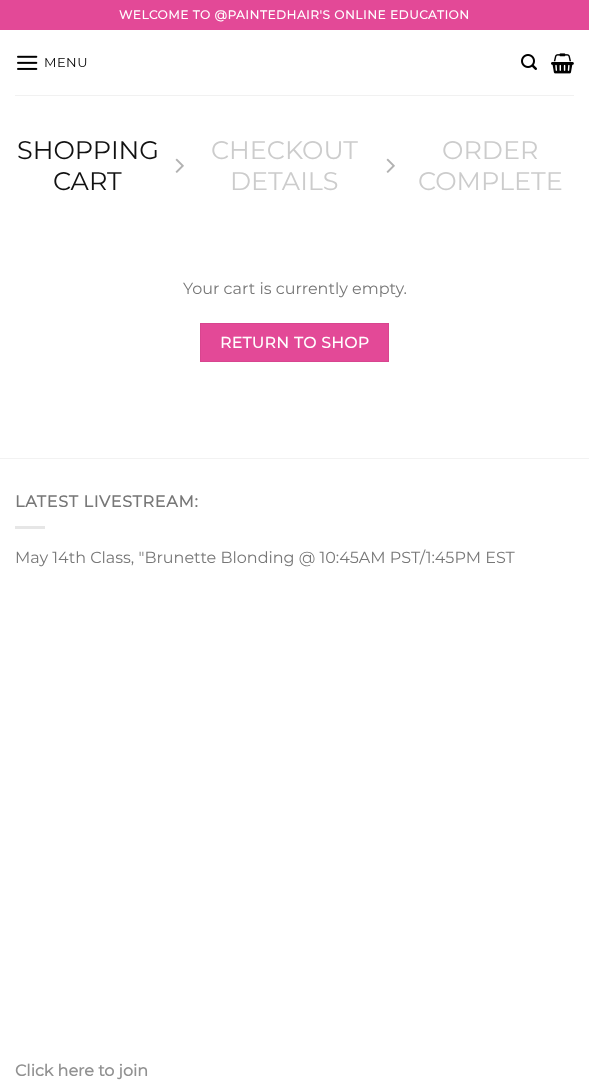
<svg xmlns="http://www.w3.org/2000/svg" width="589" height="1081">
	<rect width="100%" height="100%" fill="#FFFFFF" />
	<rect x="0" y="0" width="589" height="30" fill="#E34997" />
	<text x="119" y="19" font-family="Montserrat" font-size="12" font-weight="700" letter-spacing="0.6" fill="#FFFFFF">WELCOME TO @PAINTEDHAIR'S ONLINE EDUCATION</text>
	<image x="17" y="55" width="21" height="15" href="assets/img1.png" />
	<text x="44" y="67" font-family="Montserrat" font-size="13" font-weight="100" letter-spacing="0.5" fill="#000000">MENU</text>
	<image x="521" y="54" width="16" height="16" href="assets/img2.png" />
	<image x="551" y="53" width="23" height="21" href="assets/img3.png" />
	<rect x="15" y="95" width="559" height="1" fill="#F1F1F1" />
	<g font-family="Montserrat" font-size="25.5" font-weight="100" fill="#111111">
		<text x="17" y="159">SHOPPING</text>
		<text x="53" y="190">CART</text>
	</g>
	<image x="175" y="158" width="9" height="15" href="assets/img4.png" />
	<g font-family="Montserrat" font-size="25.5" font-weight="100" fill="#CCCCCC">
		<text x="211" y="159">CHECKOUT</text>
		<text x="230" y="190">DETAILS</text>
	</g>
	<image x="386" y="158" width="9" height="15" href="assets/img4.png" />
	<g font-family="Montserrat" font-size="25.5" font-weight="100" fill="#CCCCCC">
		<text x="442" y="159">ORDER</text>
		<text x="418" y="190">COMPLETE</text>
	</g>
	<text x="183" y="294" font-family="Montserrat" font-size="16" font-weight="100" fill="#777777">Your cart is currently empty.</text>
	<rect x="200.5" y="323.5" width="188" height="38" fill="#E34997" stroke="#D8458F" />
	<text x="220" y="348" font-family="Montserrat" font-size="15.5" font-weight="700" letter-spacing="0.5" fill="#FFFFFF">RETURN TO SHOP</text>
	<rect x="0" y="458" width="589" height="1" fill="#F2F2F2" />
	<text x="15" y="507" font-family="Montserrat" font-size="16" font-weight="700" letter-spacing="0.75" fill="#777777">LATEST LIVESTREAM:</text>
	<rect x="15" y="526" width="30" height="3" fill="#E6E6E6" />
	<text x="15" y="563" font-family="Montserrat" font-size="16" font-weight="100" fill="#777777">May 14th Class, "Brunette Blonding @ 10:45AM PST/1:45PM EST</text>
	<text x="15" y="1076" font-family="Montserrat" font-size="16" font-weight="700" fill="#919191">Click here to join</text>
</svg>
